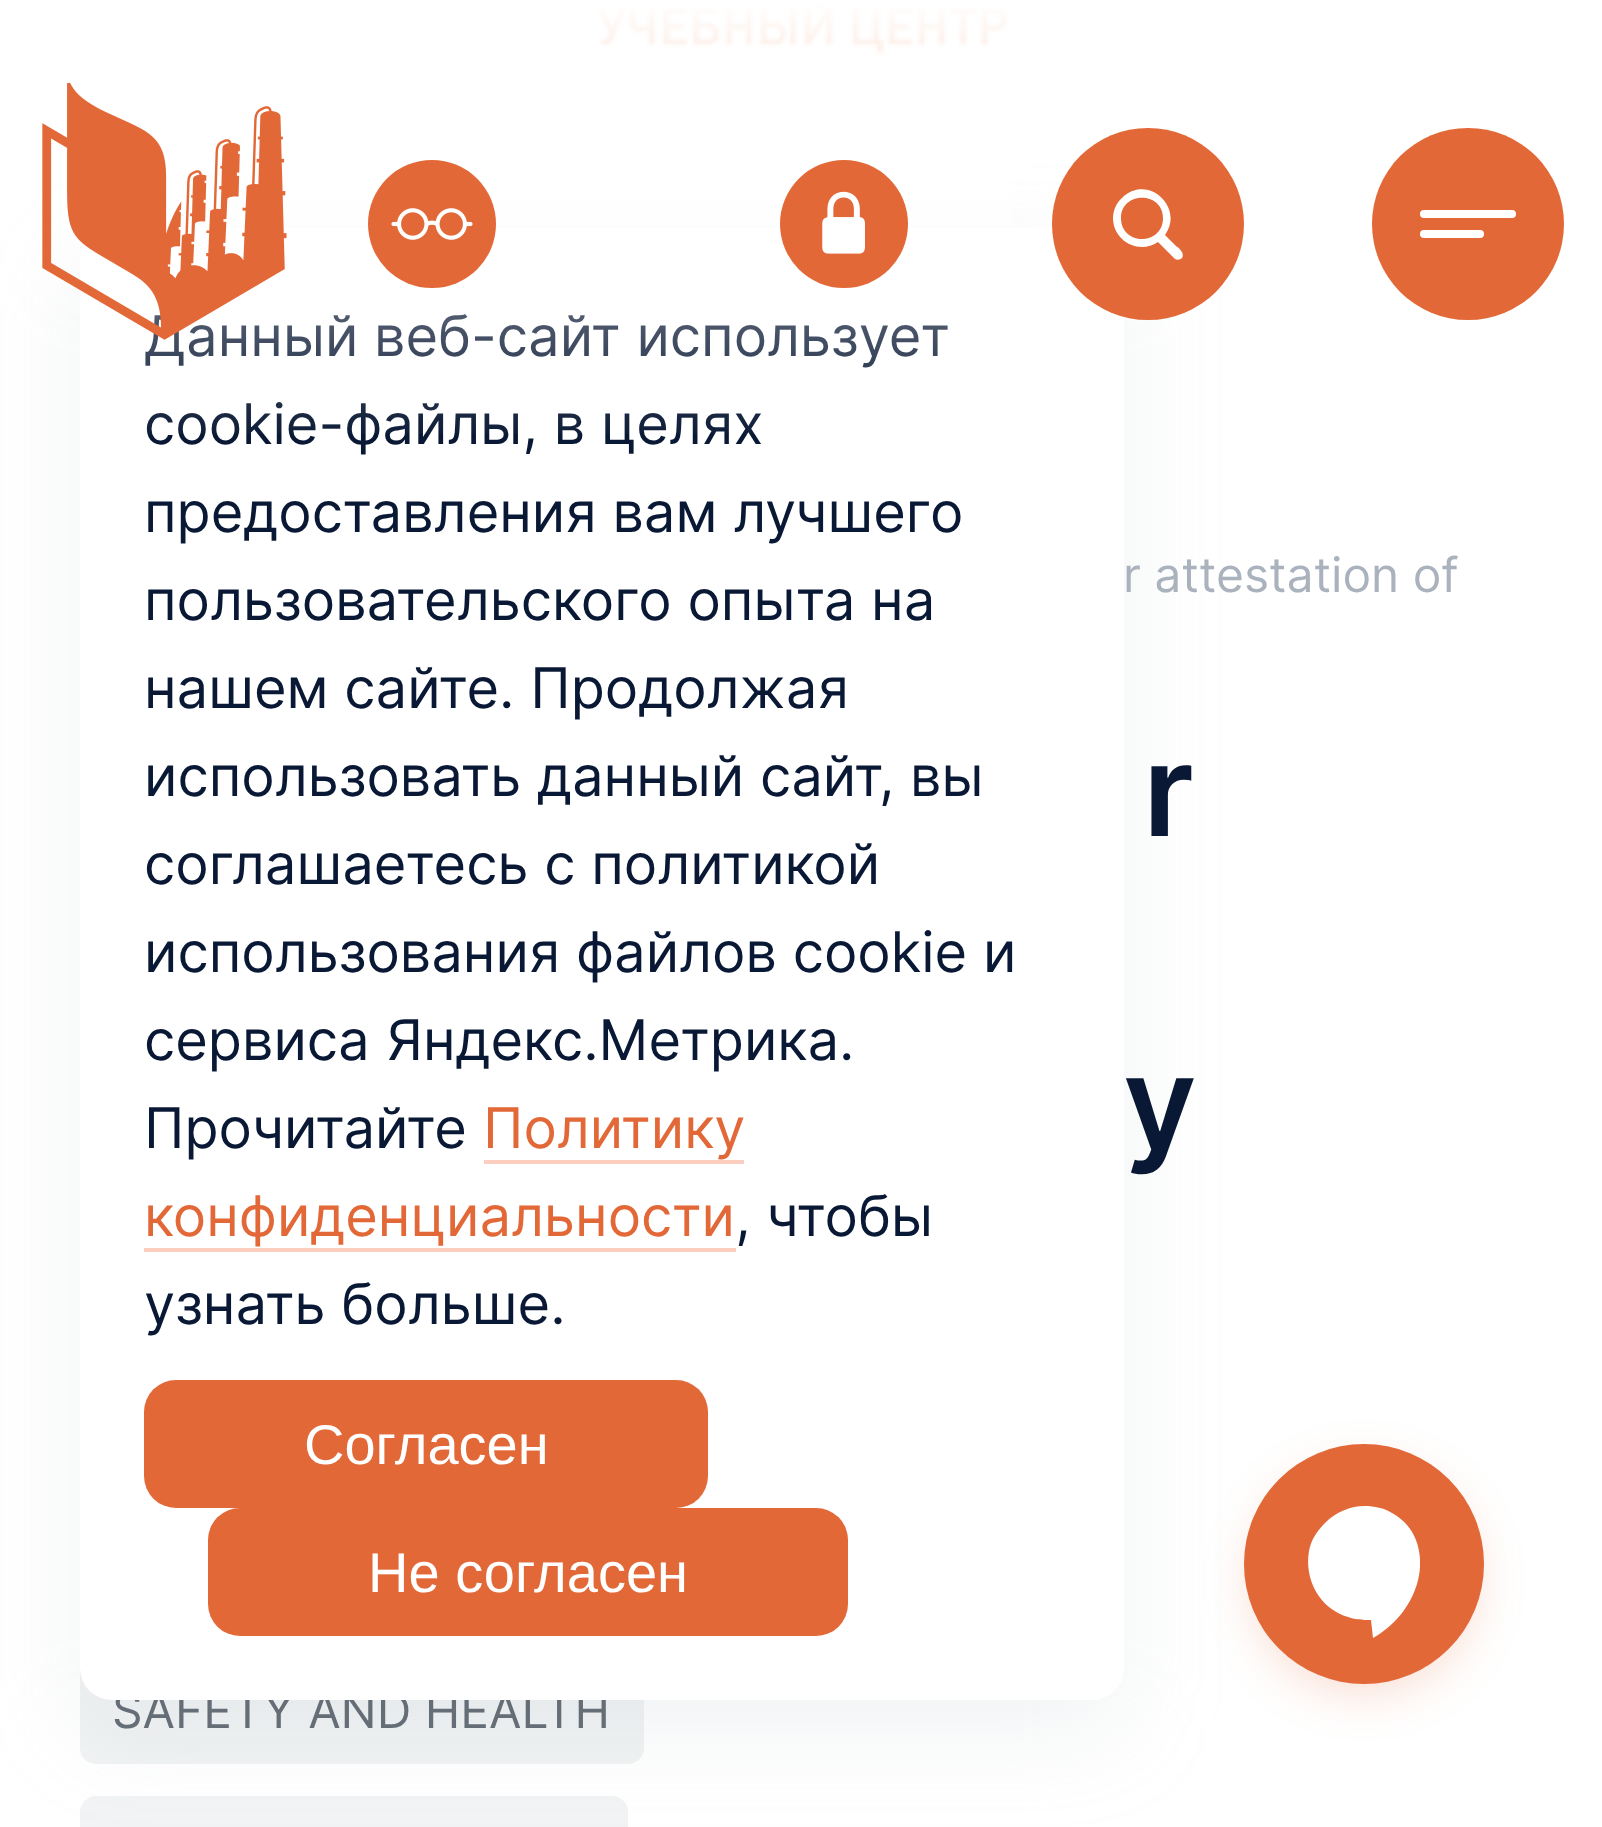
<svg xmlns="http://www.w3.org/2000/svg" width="1602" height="1827">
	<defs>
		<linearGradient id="g1" gradientUnits="userSpaceOnUse" x1="802" y1="0" x2="802" y2="444"><stop offset="0" stop-color="#FFFFFF" /><stop offset="1" stop-color="#FFFFFF" stop-opacity="0" /></linearGradient>
		<clipPath id="clip1"><rect x="1308" y="1504" width="112" height="136" /></clipPath>
	</defs>
	<rect width="100%" height="100%" fill="#FFFFFF" />
	<rect x="80" y="1656" width="564" height="108" rx="16" fill="#F1F3F4" />
	<rect x="80" y="1796" width="548" height="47" rx="16" fill="#F1F3F4" />
	<rect x="80" y="260" width="1044" height="1472" rx="32" fill="#AAB2BD" fill-opacity="0.16" filter="blur(48px)" />
	<text x="112" y="1728" font-family="Inter" font-size="48" fill="#656D77">SAFETY AND HEALTH</text>
	<rect x="80" y="228" width="1044" height="1472" rx="32" fill="#FFFFFF" />
	<g font-family="Inter" font-size="56" fill="#091834">
		<text x="144" y="356">Данный веб-сайт использует</text>
		<text x="144" y="444">cookie-файлы, в целях</text>
	</g>
	<image x="596" y="3" width="415" height="52" href="assets/img4.png" />
	<rect x="145" y="3" width="866" height="431" fill="url(#g1)" />
	<image x="42" y="82" width="245" height="258" href="assets/img1.png" />
	<circle cx="432" cy="224" r="64" fill="#E36837" />
	<image x="391" y="208" width="82" height="32" href="assets/img2.png" />
	<circle cx="844" cy="224" r="64" fill="#E36837" />
	<image x="822" y="191" width="43" height="63" href="assets/img3.png" />
	<circle cx="1148" cy="224" r="96" fill="#E36837" />
	<path d="M1113 218C1113 241 1139 255 1158 242L1175 259C1177 260 1180 260 1182 258C1185 253 1179 248 1176 246L1165 235C1185 207 1147 173 1122 198C1116 203 1113 211 1113 218ZM1121 218C1121 191 1163 191 1163 218C1163 246 1121 246 1121 218Z" fill="#FFFFFF" />
	<circle cx="1468" cy="224" r="96" fill="#E36837" />
	<rect x="1420" y="210" width="96" height="8" rx="4" fill="#FFFFFF" />
	<rect x="1420" y="230" width="64" height="8" rx="4" fill="#FFFFFF" />
	<g font-family="Inter" font-size="56" fill="#091834">
		<text x="144" y="532">предоставления вам лучшего</text>
		<text x="144" y="620">пользовательского опыта на</text>
		<text x="144" y="708">нашем сайте. Продолжая</text>
		<text x="144" y="796">использовать данный сайт, вы</text>
		<text x="144" y="884">соглашаетесь с политикой</text>
		<text x="144" y="972">использования файлов cookie и</text>
		<text x="144" y="1060">сервиса Яндекс.Метрика.</text>
		<text x="144" y="1148">Прочитайте</text>
	</g>
	<text x="483" y="1148" font-family="Inter" font-size="56" fill="#E36837">Политику</text>
	<rect x="484" y="1160" width="260" height="4" fill="#FCCEBF" />
	<text x="144" y="1236" font-family="Inter" font-size="56" fill="#E36837">конфиденциальности</text>
	<rect x="144" y="1248" width="592" height="4" fill="#FCCEBF" />
	<g font-family="Inter" font-size="56" fill="#091834">
		<text x="735" y="1236">, чтобы</text>
		<text x="144" y="1324">узнать больше.</text>
	</g>
	<rect x="144" y="1380" width="564" height="128" rx="32" fill="#E36837" />
	<text x="304" y="1464" font-family="Liberation Sans" font-size="56" fill="#FFFFFF">Согласен</text>
	<rect x="208" y="1508" width="640" height="128" rx="32" fill="#E36837" />
	<text x="368" y="1592" font-family="Liberation Sans" font-size="56" fill="#FFFFFF">Не согласен</text>
	<text x="1123" y="592" font-family="Inter" font-size="48" fill="#AAB2BD">r attestation of</text>
	<g font-family="Inter" font-size="128" font-weight="600" fill="#091834">
		<text x="1143" y="836">r</text>
		<text x="1123" y="1148">y</text>
	</g>
	<rect x="1252" y="1468" width="224" height="224" rx="112" fill="#E36837" fill-opacity="0.24" filter="blur(24px)" />
	<circle cx="1364" cy="1564" r="120" fill="#E36837" />
	<g clip-path="url(#clip1)">
		<path d="M1373 1638L1371 1620C1364 1620 1356 1620 1348 1617C1320 1609 1304 1580 1309 1551C1311 1540 1317 1531 1325 1523C1336 1512 1350 1506 1365 1506C1374 1506 1384 1508 1392 1513C1418 1527 1425 1557 1417 1584C1410 1607 1394 1626 1373 1638Z" fill="#FFFFFF" />
	</g>
</svg>
